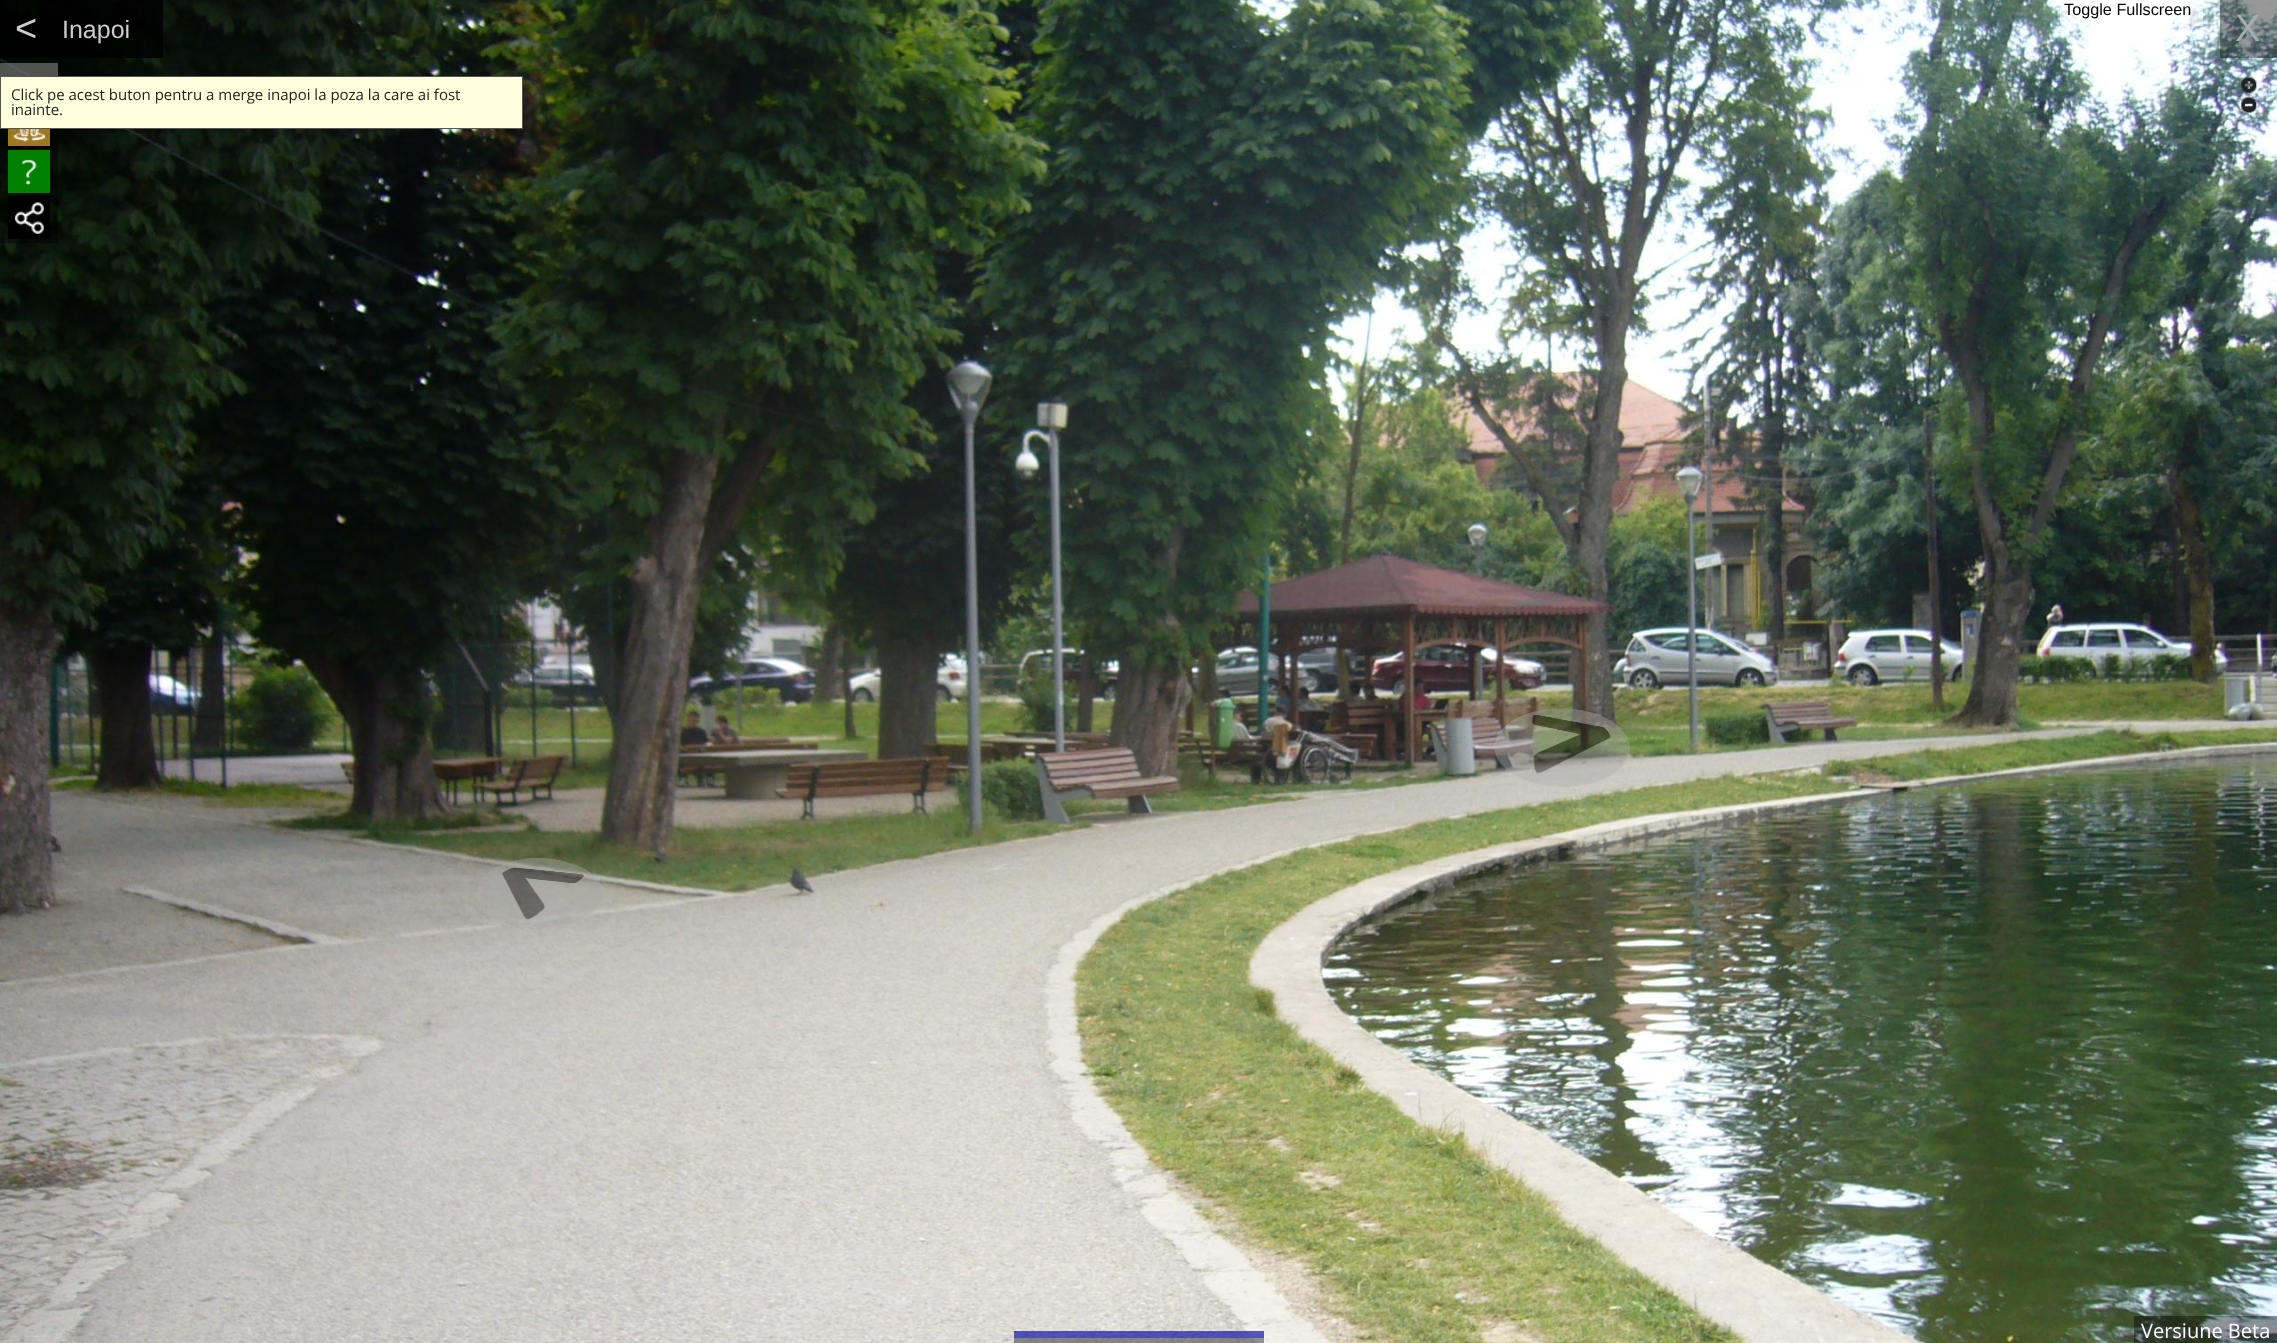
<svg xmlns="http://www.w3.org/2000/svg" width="2277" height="1343">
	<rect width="100%" height="100%" fill="#FFFFFF" />
	<image x="0" y="0" width="2277" height="1343" href="assets/img1.png" />
	<rect x="2060" y="0" width="131" height="23" fill="#FFFFFF" fill-opacity="0.6" />
	<text x="2064" y="15" font-family="Liberation Sans" font-size="16.25" fill="#000000">Toggle Fullscreen</text>
	<rect x="2191" y="0" width="12" height="26" fill="#FFFFFF" fill-opacity="0.6" />
	<rect x="0" y="0" width="163" height="58" fill="#000000" fill-opacity="0.8" />
	<text x="15" y="41" font-family="Liberation Sans" font-size="38" fill="#CCCCCC">&lt;</text>
	<text x="62" y="38" font-family="Liberation Sans" font-size="25" fill="#CCCCCC">Inapoi</text>
	<rect x="2220" y="0" width="57" height="58" fill="#000000" fill-opacity="0.4" />
	<text x="2235" y="41" font-family="Liberation Sans" font-size="38" fill="#A4AEAE">X</text>
	<rect x="0" y="63" width="58" height="180" fill="#000000" fill-opacity="0.4" />
	<rect x="0" y="63" width="58" height="13" fill="#C8C8C8" fill-opacity="0.4" />
	<rect x="8" y="129" width="42" height="17" fill="#9C7922" />
	<image x="13" y="129" width="32" height="13" href="assets/img2.png" />
	<rect x="8" y="150" width="42" height="43" fill="#008000" />
	<image x="21" y="159" width="16" height="27" href="assets/img3.png" />
	<rect x="8" y="196" width="42" height="43" fill="#000000" />
	<image x="15" y="202" width="29" height="32" href="assets/img4.png" />
	<image x="2241" y="77" width="16" height="16" href="assets/img5.png" />
	<image x="2241" y="97" width="16" height="16" href="assets/img6.png" />
	<image x="1494" y="708" width="137" height="79" href="assets/img7.png" />
	<image x="478" y="858" width="126" height="70" href="assets/img8.png" />
	<rect x="1014" y="1331" width="250" height="12" fill="#000000" fill-opacity="0.4" />
	<rect x="1014" y="1331" width="250" height="7" fill="#0000FF" fill-opacity="0.4" />
	<rect x="0.5" y="76.5" width="522" height="52" fill="#FFFFDD" stroke="#555555" />
	<g font-family="Open Sans" font-size="15" fill="#222222">
		<text x="11" y="100">Click pe acest buton pentru a merge inapoi la poza la care ai fost</text>
		<text x="11" y="115">inainte.</text>
	</g>
	<rect x="2134" y="1316" width="143" height="27" fill="#000000" fill-opacity="0.4" />
	<text x="2141" y="1338" font-family="Open Sans" font-size="20" fill="#FFFFFF">Versiune Beta</text>
</svg>
